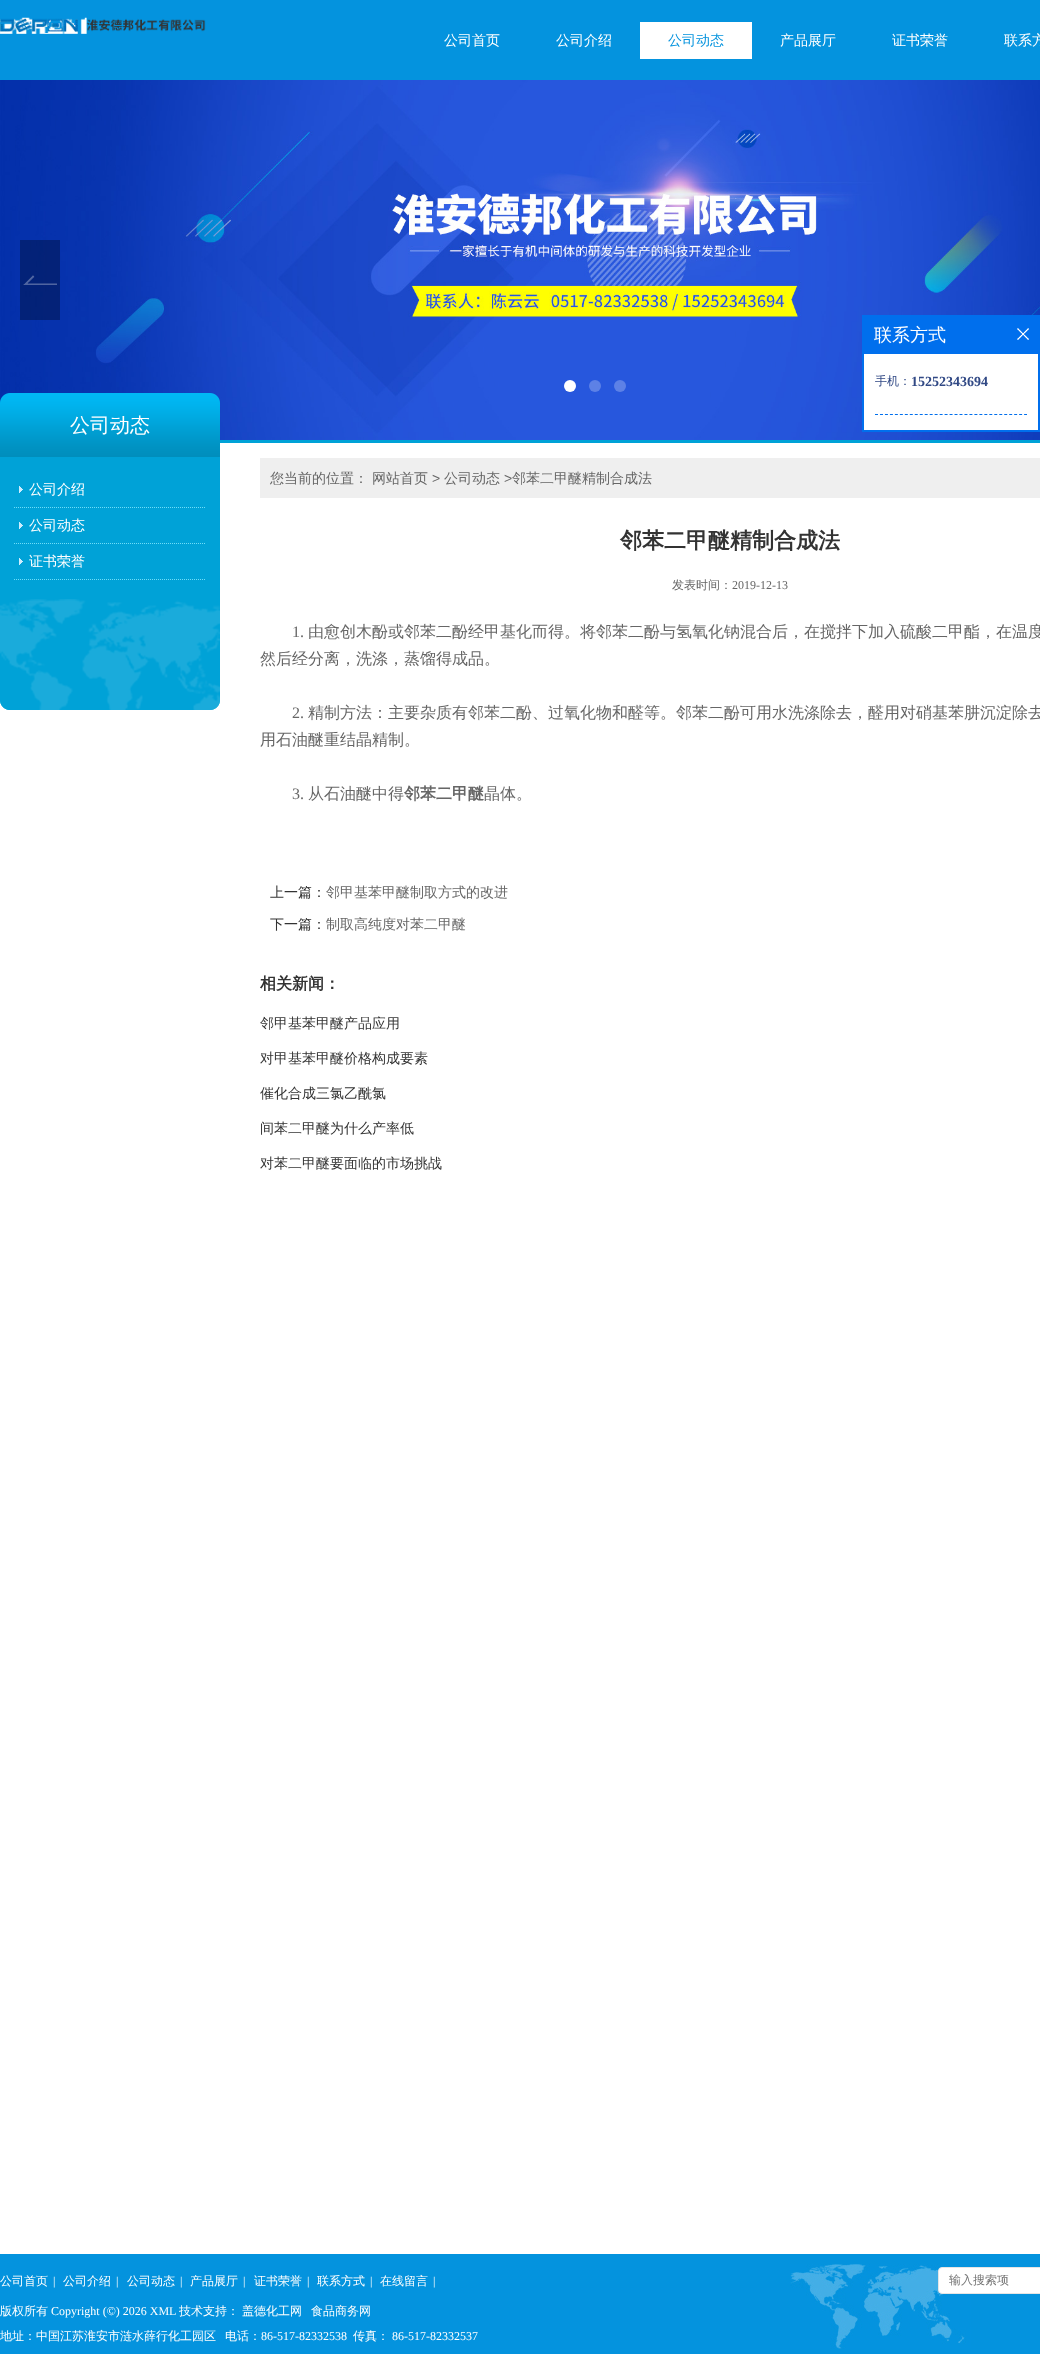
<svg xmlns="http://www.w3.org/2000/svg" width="1040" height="2354">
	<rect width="100%" height="100%" fill="#FFFFFF" />
	<rect x="0" y="0" width="1040" height="80" fill="#0493DE" />
	<image x="0" y="17" width="206" height="17" href="assets/img1.png" />
	<g font-family="WenQuanYi Zen Hei" font-size="14" font-weight="500" fill="#FFFFFF">
		<text x="444" y="45">公司首页</text>
		<text x="556" y="45">公司介绍</text>
	</g>
	<rect x="640" y="22" width="112" height="37" fill="#FFFFFF" />
	<text x="668" y="45" font-family="WenQuanYi Zen Hei" font-size="14" font-weight="500" fill="#0493DE">公司动态</text>
	<g font-family="WenQuanYi Zen Hei" font-size="14" font-weight="500" fill="#FFFFFF">
		<text x="780" y="45">产品展厅</text>
		<text x="892" y="45">证书荣誉</text>
		<text x="1004" y="45">联系方</text>
	</g>
	<rect x="220" y="440" width="820" height="3" fill="#00A2D7" />
	<image x="0" y="80" width="1040" height="360" href="assets/img2.png" />
	<rect x="20" y="240" width="40" height="80" fill="#000000" fill-opacity="0.3" />
	<image x="23" y="275" width="34" height="10" href="assets/img3.png" />
	<circle cx="570" cy="386" r="6" fill="#FFFFFF" />
	<circle cx="595" cy="386" r="6" fill="#5D81E6" />
	<circle cx="620" cy="386" r="6" fill="#5D81E6" />
	<rect x="862" y="315" width="178" height="117" fill="#006FED" />
	<text x="874" y="341" font-family="WenQuanYi Zen Hei" font-size="18" font-weight="500" fill="#FFFFFF">联系方式</text>
	<image x="1017" y="328" width="12" height="12" href="assets/img4.png" />
	<rect x="864" y="354" width="174" height="76" fill="#FFFFFF" />
	<path d="M875 414.5H1027" fill="none" stroke="#006FED" stroke-dasharray="3 1.97" />
	<text x="875" y="385" font-family="WenQuanYi Zen Hei" font-size="12" font-weight="500" fill="#314985">手机：</text>
	<text x="911" y="386" font-family="Liberation Serif" font-size="14" font-weight="700" fill="#314985">15252343694</text>
	<image x="0" y="595" width="220" height="115" href="assets/img5.png" />
	<image x="0" y="393" width="220" height="64" href="assets/img6.png" />
	<text x="70" y="432" font-family="WenQuanYi Zen Hei" font-size="20" font-weight="500" fill="#FFFFFF">公司动态</text>
	<rect x="0" y="457" width="220" height="138" fill="#00A2D7" />
	<path d="M14 507.5H206" fill="none" stroke="#6FDDF8" stroke-dasharray="1 1" />
	<image x="19" y="486" width="4" height="7" href="assets/img7.png" />
	<text x="29" y="494" font-family="WenQuanYi Zen Hei" font-size="14" font-weight="500" fill="#FFFFFF">公司介绍</text>
	<path d="M14 543.5H206" fill="none" stroke="#6FDDF8" stroke-dasharray="1 1" />
	<image x="19" y="522" width="4" height="7" href="assets/img7.png" />
	<text x="29" y="530" font-family="WenQuanYi Zen Hei" font-size="14" font-weight="500" fill="#FFFFFF">公司动态</text>
	<path d="M14 579.5H206" fill="none" stroke="#6FDDF8" stroke-dasharray="1 1" />
	<image x="19" y="558" width="4" height="7" href="assets/img7.png" />
	<text x="29" y="566" font-family="WenQuanYi Zen Hei" font-size="14" font-weight="500" fill="#FFFFFF">证书荣誉</text>
	<rect x="260" y="458" width="780" height="40" fill="#EFEFEF" />
	<g font-family="WenQuanYi Zen Hei" font-size="14" font-weight="500" fill="#666666">
		<text x="270" y="483">您当前的位置：</text>
		<text x="372" y="483">网站首页</text>
	</g>
	<text x="432" y="483" font-family="Liberation Sans" font-size="14" fill="#666666">&gt;</text>
	<text x="444" y="483" font-family="WenQuanYi Zen Hei" font-size="14" font-weight="500" fill="#666666">公司动态</text>
	<text x="504" y="483" font-family="Liberation Sans" font-size="14" fill="#666666">&gt;</text>
	<text x="512" y="483" font-family="WenQuanYi Zen Hei" font-size="14" font-weight="500" fill="#666666">邻苯二甲醚精制合成法</text>
	<text x="620" y="548" font-family="WenQuanYi Zen Hei" font-size="22" font-weight="700" fill="#333333">邻苯二甲醚精制合成法</text>
	<text x="672" y="589" font-family="WenQuanYi Zen Hei" font-size="12" font-weight="500" fill="#666666">发表时间：</text>
	<text x="732" y="589" font-family="Liberation Serif" font-size="12" fill="#666666">2019-12-13</text>
	<text x="292" y="637" font-family="Liberation Serif" font-size="16" fill="#666666">1.</text>
	<g font-family="WenQuanYi Zen Hei" font-size="16" font-weight="500" fill="#666666">
		<text x="308" y="637">由愈创木酚或邻苯二酚经甲基化而得。将邻苯二酚与氢氧化钠混合后，在搅拌下加入硫酸二甲酯，在温度</text>
		<text x="260" y="664">然后经分离，洗涤，蒸馏得成品。</text>
	</g>
	<text x="292" y="718" font-family="Liberation Serif" font-size="16" fill="#666666">2.</text>
	<g font-family="WenQuanYi Zen Hei" font-size="16" font-weight="500" fill="#666666">
		<text x="308" y="718">精制方法：主要杂质有邻苯二酚、过氧化物和醛等。邻苯二酚可用水洗涤除去，醛用对硝基苯肼沉淀除去</text>
		<text x="260" y="745">用石油醚重结晶精制。</text>
	</g>
	<text x="292" y="799" font-family="Liberation Serif" font-size="16" fill="#666666">3.</text>
	<text x="308" y="799" font-family="WenQuanYi Zen Hei" font-size="16" font-weight="500" fill="#666666">从石油醚中得</text>
	<text x="404" y="799" font-family="WenQuanYi Zen Hei" font-size="16" font-weight="700" fill="#666666">邻苯二甲醚</text>
	<text x="484" y="799" font-family="WenQuanYi Zen Hei" font-size="16" font-weight="500" fill="#666666">晶体。</text>
	<text x="270" y="897" font-family="WenQuanYi Zen Hei" font-size="14" font-weight="500" fill="#333333">上一篇：</text>
	<text x="326" y="897" font-family="WenQuanYi Zen Hei" font-size="14" font-weight="500" fill="#666666">邻甲基苯甲醚制取方式的改进</text>
	<text x="270" y="929" font-family="WenQuanYi Zen Hei" font-size="14" font-weight="500" fill="#333333">下一篇：</text>
	<text x="326" y="929" font-family="WenQuanYi Zen Hei" font-size="14" font-weight="500" fill="#666666">制取高纯度对苯二甲醚</text>
	<text x="260" y="989" font-family="WenQuanYi Zen Hei" font-size="16" font-weight="700" fill="#333333">相关新闻：</text>
	<g font-family="WenQuanYi Zen Hei" font-size="14" font-weight="500" fill="#333333">
		<text x="260" y="1028">邻甲基苯甲醚产品应用</text>
		<text x="260" y="1063">对甲基苯甲醚价格构成要素</text>
		<text x="260" y="1098">催化合成三氯乙酰氯</text>
		<text x="260" y="1133">间苯二甲醚为什么产率低</text>
		<text x="260" y="1168">对苯二甲醚要面临的市场挑战</text>
	</g>
	<rect x="0" y="2254" width="1040" height="100" fill="#0493DE" />
	<image x="790" y="2264" width="181" height="85" href="assets/img8.png" />
	<text x="0" y="2285" font-family="WenQuanYi Zen Hei" font-size="12" font-weight="500" fill="#FFFFFF">公司首页</text>
	<text x="53" y="2285" font-family="Liberation Serif" font-size="12" fill="#FFFFFF">|</text>
	<text x="63" y="2285" font-family="WenQuanYi Zen Hei" font-size="12" font-weight="500" fill="#FFFFFF">公司介绍</text>
	<text x="116" y="2285" font-family="Liberation Serif" font-size="12" fill="#FFFFFF">|</text>
	<text x="127" y="2285" font-family="WenQuanYi Zen Hei" font-size="12" font-weight="500" fill="#FFFFFF">公司动态</text>
	<text x="180" y="2285" font-family="Liberation Serif" font-size="12" fill="#FFFFFF">|</text>
	<text x="190" y="2285" font-family="WenQuanYi Zen Hei" font-size="12" font-weight="500" fill="#FFFFFF">产品展厅</text>
	<text x="243" y="2285" font-family="Liberation Serif" font-size="12" fill="#FFFFFF">|</text>
	<text x="254" y="2285" font-family="WenQuanYi Zen Hei" font-size="12" font-weight="500" fill="#FFFFFF">证书荣誉</text>
	<text x="307" y="2285" font-family="Liberation Serif" font-size="12" fill="#FFFFFF">|</text>
	<text x="317" y="2285" font-family="WenQuanYi Zen Hei" font-size="12" font-weight="500" fill="#FFFFFF">联系方式</text>
	<text x="370" y="2285" font-family="Liberation Serif" font-size="12" fill="#FFFFFF">|</text>
	<text x="380" y="2285" font-family="WenQuanYi Zen Hei" font-size="12" font-weight="500" fill="#FFFFFF">在线留言</text>
	<text x="433" y="2285" font-family="Liberation Serif" font-size="12" fill="#FFFFFF">|</text>
	<rect x="938.5" y="2267.5" width="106" height="26" rx="3.5" fill="#FFFFFF" stroke="#E5E5E5" />
	<text x="949" y="2284" font-family="WenQuanYi Zen Hei" font-size="12" font-weight="500" fill="#757575">输入搜索项</text>
	<text x="0" y="2315" font-family="WenQuanYi Zen Hei" font-size="12" font-weight="500" fill="#FFFFFF">版权所有</text>
	<text x="51" y="2315" font-family="Liberation Serif" font-size="12" fill="#FFFFFF">Copyright (©) 2026 XML</text>
	<g font-family="WenQuanYi Zen Hei" font-size="12" font-weight="500" fill="#FFFFFF">
		<text x="179" y="2315">技术支持：</text>
		<text x="242" y="2315">盖德化工网</text>
		<text x="311" y="2315">食品商务网</text>
		<text x="0" y="2340">地址：中国江苏淮安市涟水薛行化工园区</text>
		<text x="225" y="2340">电话：</text>
	</g>
	<text x="261" y="2340" font-family="Liberation Serif" font-size="12" fill="#FFFFFF">86-517-82332538</text>
	<text x="353" y="2340" font-family="WenQuanYi Zen Hei" font-size="12" font-weight="500" fill="#FFFFFF">传真：</text>
	<text x="392" y="2340" font-family="Liberation Serif" font-size="12" fill="#FFFFFF">86-517-82332537</text>
</svg>
